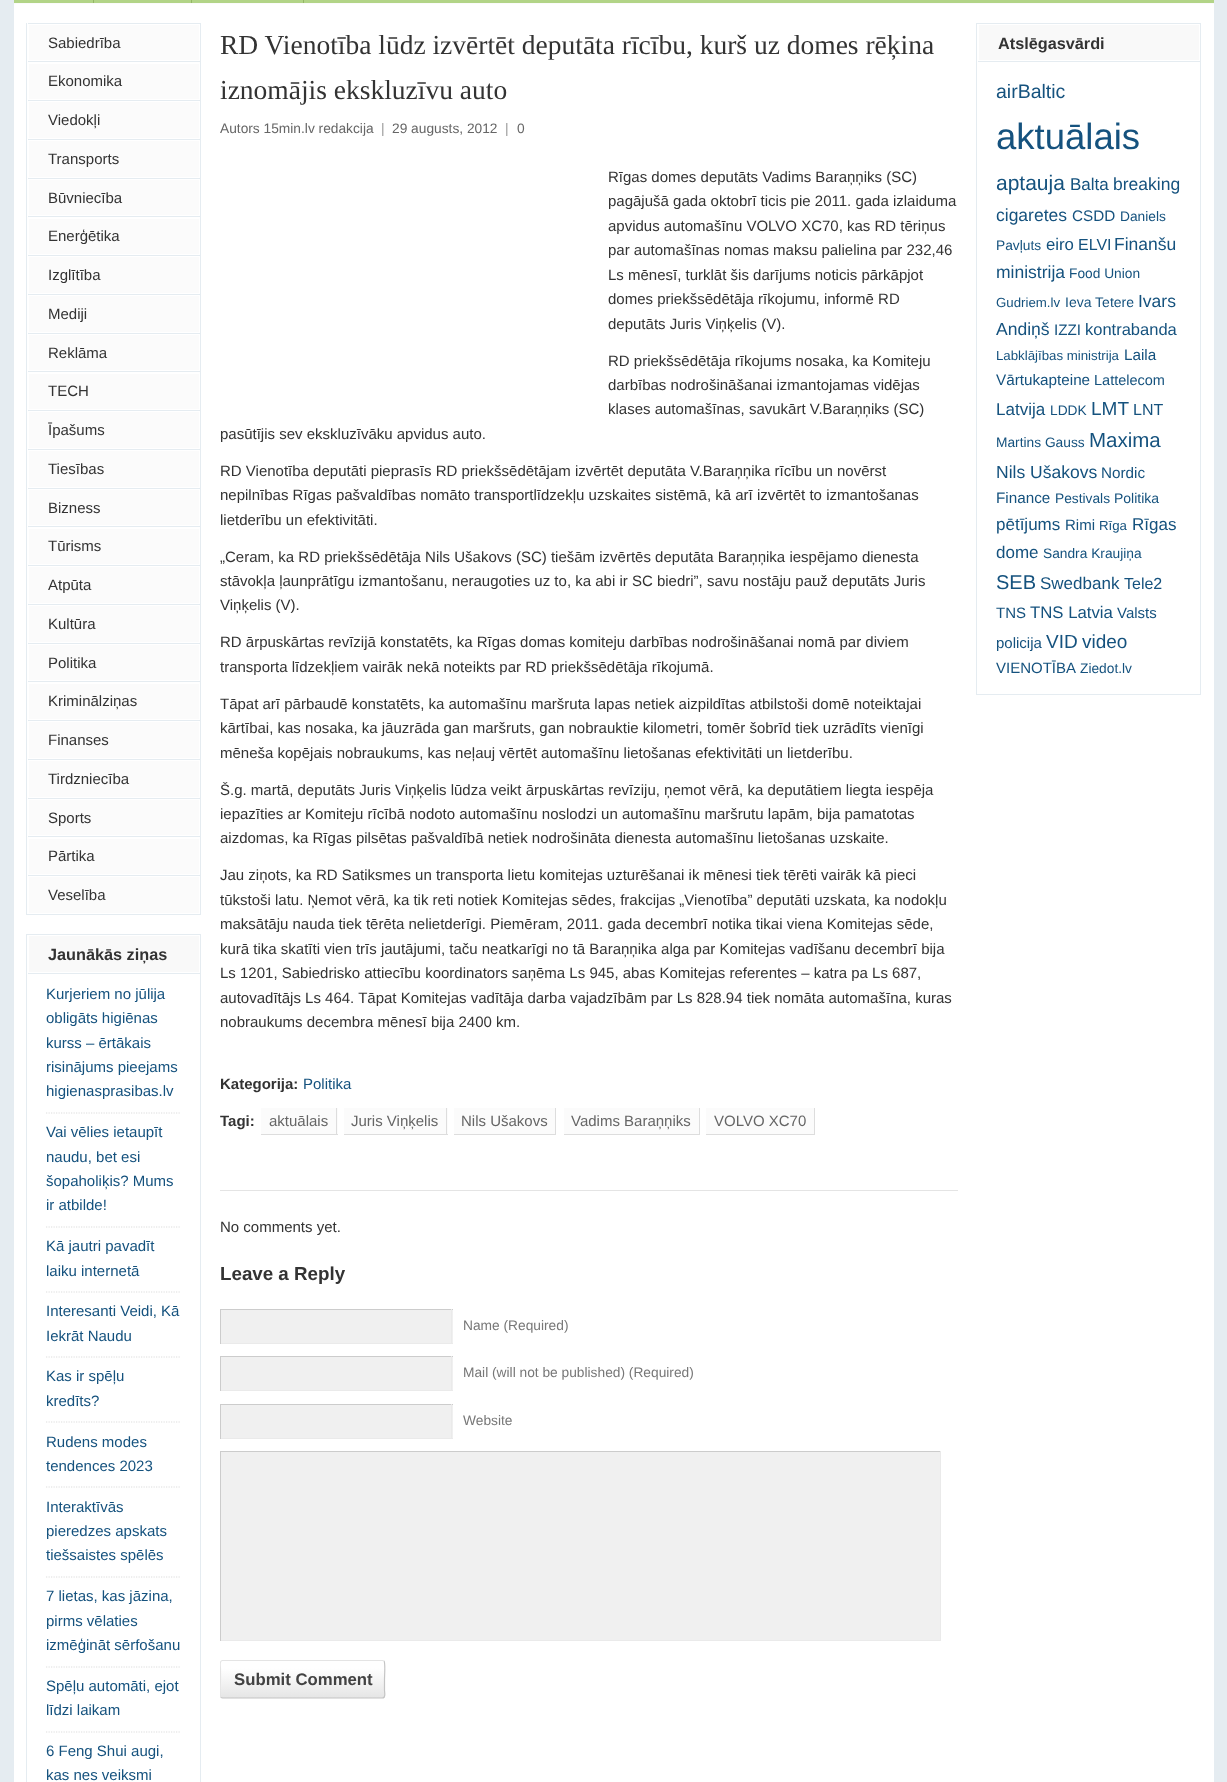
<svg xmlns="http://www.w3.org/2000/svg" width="1227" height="1782">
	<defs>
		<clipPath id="clip1"><rect x="220" y="1660" width="165" height="39" rx="2.5" /></clipPath>
		<linearGradient id="g1" gradientUnits="userSpaceOnUse" x1="221" y1="1661" x2="221" y2="1698"><stop offset="0.2" stop-color="#FFFFFF" /><stop offset="1" stop-color="#E5E5E5" /></linearGradient>
		<clipPath id="clip2"><rect x="220" y="23" width="738" height="1676" /></clipPath>
	</defs>
	<rect width="100%" height="100%" fill="#E5ECF1" />
	<rect x="14" y="4" width="1200" height="1778" fill="#FFFFFF" />
	<rect x="14" y="0" width="1200" height="3" fill="#B2D487" />
	<rect x="14" y="3" width="1200" height="1" fill="#FBFBFB" />
	<rect x="93" y="0" width="1" height="3" fill="#93B666" />
	<rect x="191" y="0" width="1" height="3" fill="#93B666" />
	<rect x="303" y="0" width="1" height="3" fill="#93B666" />
	<rect x="200" y="23" width="1" height="892" fill="#E5ECF1" />
	<rect x="26" y="914" width="175" height="1" fill="#E5ECF1" />
	<rect x="26" y="23" width="1" height="892" fill="#E5ECF1" />
	<rect x="28" y="23" width="172" height="1" fill="#E5ECF1" />
	<rect x="29" y="25" width="170" height="35" fill="#FBFBFB" />
	<text x="48" y="48" font-family="Liberation Sans" font-size="15" fill="#333333">Sabiedrība</text>
	<rect x="28" y="61" width="172" height="1" fill="#E5ECF1" />
	<rect x="29" y="64" width="170" height="35" fill="#FBFBFB" />
	<text x="48" y="86" font-family="Liberation Sans" font-size="15" fill="#333333">Ekonomika</text>
	<rect x="28" y="100" width="172" height="1" fill="#E5ECF1" />
	<rect x="29" y="102" width="170" height="36" fill="#FBFBFB" />
	<text x="48" y="125" font-family="Liberation Sans" font-size="15" fill="#333333">Viedokļi</text>
	<rect x="28" y="139" width="172" height="1" fill="#E5ECF1" />
	<rect x="29" y="141" width="170" height="36" fill="#FBFBFB" />
	<text x="48" y="164" font-family="Liberation Sans" font-size="15" fill="#333333">Transports</text>
	<rect x="28" y="178" width="172" height="1" fill="#E5ECF1" />
	<rect x="29" y="180" width="170" height="35" fill="#FBFBFB" />
	<text x="48" y="203" font-family="Liberation Sans" font-size="15" fill="#333333">Būvniecība</text>
	<rect x="28" y="216" width="172" height="1" fill="#E5ECF1" />
	<rect x="29" y="219" width="170" height="35" fill="#FBFBFB" />
	<text x="48" y="241" font-family="Liberation Sans" font-size="15" fill="#333333">Enerģētika</text>
	<rect x="28" y="255" width="172" height="1" fill="#E5ECF1" />
	<rect x="29" y="257" width="170" height="36" fill="#FBFBFB" />
	<text x="48" y="280" font-family="Liberation Sans" font-size="15" fill="#333333">Izglītība</text>
	<rect x="28" y="294" width="172" height="1" fill="#E5ECF1" />
	<rect x="29" y="296" width="170" height="36" fill="#FBFBFB" />
	<text x="48" y="319" font-family="Liberation Sans" font-size="15" fill="#333333">Mediji</text>
	<rect x="28" y="333" width="172" height="1" fill="#E5ECF1" />
	<rect x="29" y="335" width="170" height="35" fill="#FBFBFB" />
	<text x="48" y="358" font-family="Liberation Sans" font-size="15" fill="#333333">Reklāma</text>
	<rect x="28" y="371" width="172" height="1" fill="#E5ECF1" />
	<rect x="29" y="374" width="170" height="35" fill="#FBFBFB" />
	<text x="48" y="396" font-family="Liberation Sans" font-size="15" fill="#333333">TECH</text>
	<rect x="28" y="410" width="172" height="1" fill="#E5ECF1" />
	<rect x="29" y="412" width="170" height="36" fill="#FBFBFB" />
	<text x="48" y="435" font-family="Liberation Sans" font-size="15" fill="#333333">Īpašums</text>
	<rect x="28" y="449" width="172" height="1" fill="#E5ECF1" />
	<rect x="29" y="451" width="170" height="36" fill="#FBFBFB" />
	<text x="48" y="474" font-family="Liberation Sans" font-size="15" fill="#333333">Tiesības</text>
	<rect x="28" y="488" width="172" height="1" fill="#E5ECF1" />
	<rect x="29" y="490" width="170" height="35" fill="#FBFBFB" />
	<text x="48" y="513" font-family="Liberation Sans" font-size="15" fill="#333333">Bizness</text>
	<rect x="28" y="526" width="172" height="1" fill="#E5ECF1" />
	<rect x="29" y="529" width="170" height="35" fill="#FBFBFB" />
	<text x="48" y="551" font-family="Liberation Sans" font-size="15" fill="#333333">Tūrisms</text>
	<rect x="28" y="565" width="172" height="1" fill="#E5ECF1" />
	<rect x="29" y="567" width="170" height="36" fill="#FBFBFB" />
	<text x="48" y="590" font-family="Liberation Sans" font-size="15" fill="#333333">Atpūta</text>
	<rect x="28" y="604" width="172" height="1" fill="#E5ECF1" />
	<rect x="29" y="606" width="170" height="36" fill="#FBFBFB" />
	<text x="48" y="629" font-family="Liberation Sans" font-size="15" fill="#333333">Kultūra</text>
	<rect x="28" y="643" width="172" height="1" fill="#E5ECF1" />
	<rect x="29" y="645" width="170" height="35" fill="#FBFBFB" />
	<text x="48" y="668" font-family="Liberation Sans" font-size="15" fill="#333333">Politika</text>
	<rect x="28" y="681" width="172" height="1" fill="#E5ECF1" />
	<rect x="29" y="684" width="170" height="35" fill="#FBFBFB" />
	<text x="48" y="706" font-family="Liberation Sans" font-size="15" fill="#333333">Kriminālziņas</text>
	<rect x="28" y="720" width="172" height="1" fill="#E5ECF1" />
	<rect x="29" y="722" width="170" height="36" fill="#FBFBFB" />
	<text x="48" y="745" font-family="Liberation Sans" font-size="15" fill="#333333">Finanses</text>
	<rect x="28" y="759" width="172" height="1" fill="#E5ECF1" />
	<rect x="29" y="761" width="170" height="36" fill="#FBFBFB" />
	<text x="48" y="784" font-family="Liberation Sans" font-size="15" fill="#333333">Tirdzniecība</text>
	<rect x="28" y="798" width="172" height="1" fill="#E5ECF1" />
	<rect x="29" y="800" width="170" height="35" fill="#FBFBFB" />
	<text x="48" y="823" font-family="Liberation Sans" font-size="15" fill="#333333">Sports</text>
	<rect x="28" y="836" width="172" height="1" fill="#E5ECF1" />
	<rect x="29" y="839" width="170" height="35" fill="#FBFBFB" />
	<text x="48" y="861" font-family="Liberation Sans" font-size="15" fill="#333333">Pārtika</text>
	<rect x="28" y="875" width="172" height="1" fill="#E5ECF1" />
	<rect x="29" y="877" width="170" height="36" fill="#FBFBFB" />
	<text x="48" y="900" font-family="Liberation Sans" font-size="15" fill="#333333">Veselība</text>
	<rect x="26.5" y="934.5" width="174" height="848" fill="none" stroke="#E5ECF1" />
	<rect x="29" y="936" width="170" height="36" fill="#F9F9F9" />
	<text x="48" y="960" font-family="Liberation Sans" font-size="16.25" font-weight="700" fill="#333333">Jaunākās ziņas</text>
	<rect x="28" y="973" width="172" height="1" fill="#E5ECF1" />
	<path d="M46 1113H181" fill="none" stroke="#DDDDDD" stroke-width="1.2" stroke-dasharray="1.25 1.25" />
	<g font-family="Liberation Sans" font-size="15" fill="#15527E">
		<text x="46" y="999">Kurjeriem no jūlija</text>
		<text x="46" y="1023">obligāts higiēnas</text>
		<text x="46" y="1048">kurss – ērtākais</text>
		<text x="46" y="1072">risinājums pieejams</text>
		<text x="46" y="1096">higienasprasibas.lv</text>
	</g>
	<path d="M46 1227H181" fill="none" stroke="#DDDDDD" stroke-width="1.2" stroke-dasharray="1.25 1.25" />
	<g font-family="Liberation Sans" font-size="15" fill="#15527E">
		<text x="46" y="1137">Vai vēlies ietaupīt</text>
		<text x="46" y="1162">naudu, bet esi</text>
		<text x="46" y="1186">šopaholiķis? Mums</text>
		<text x="46" y="1210">ir atbilde!</text>
	</g>
	<path d="M46 1292H181" fill="none" stroke="#DDDDDD" stroke-width="1.2" stroke-dasharray="1.25 1.25" />
	<g font-family="Liberation Sans" font-size="15" fill="#15527E">
		<text x="46" y="1251">Kā jautri pavadīt</text>
		<text x="46" y="1276">laiku internetā</text>
	</g>
	<path d="M46 1357H181" fill="none" stroke="#DDDDDD" stroke-width="1.2" stroke-dasharray="1.25 1.25" />
	<g font-family="Liberation Sans" font-size="15" fill="#15527E">
		<text x="46" y="1316">Interesanti Veidi, Kā</text>
		<text x="46" y="1341">Iekrāt Naudu</text>
	</g>
	<path d="M46 1422H181" fill="none" stroke="#DDDDDD" stroke-width="1.2" stroke-dasharray="1.25 1.25" />
	<g font-family="Liberation Sans" font-size="15" fill="#15527E">
		<text x="46" y="1381">Kas ir spēļu</text>
		<text x="46" y="1406">kredīts?</text>
	</g>
	<path d="M46 1487H181" fill="none" stroke="#DDDDDD" stroke-width="1.2" stroke-dasharray="1.25 1.25" />
	<g font-family="Liberation Sans" font-size="15" fill="#15527E">
		<text x="46" y="1447">Rudens modes</text>
		<text x="46" y="1471">tendences 2023</text>
	</g>
	<path d="M46 1577H181" fill="none" stroke="#DDDDDD" stroke-width="1.2" stroke-dasharray="1.25 1.25" />
	<g font-family="Liberation Sans" font-size="15" fill="#15527E">
		<text x="46" y="1512">Interaktīvās</text>
		<text x="46" y="1536">pieredzes apskats</text>
		<text x="46" y="1560">tiešsaistes spēlēs</text>
	</g>
	<path d="M46 1667H181" fill="none" stroke="#DDDDDD" stroke-width="1.2" stroke-dasharray="1.25 1.25" />
	<g font-family="Liberation Sans" font-size="15" fill="#15527E">
		<text x="46" y="1601">7 lietas, kas jāzina,</text>
		<text x="46" y="1626">pirms vēlaties</text>
		<text x="46" y="1650">izmēģināt sērfošanu</text>
	</g>
	<path d="M46 1732H181" fill="none" stroke="#DDDDDD" stroke-width="1.2" stroke-dasharray="1.25 1.25" />
	<g font-family="Liberation Sans" font-size="15" fill="#15527E">
		<text x="46" y="1691">Spēļu automāti, ejot</text>
		<text x="46" y="1715">līdzi laikam</text>
		<text x="46" y="1756">6 Feng Shui augi,</text>
		<text x="46" y="1780">kas nes veiksmi</text>
	</g>
	<g font-family="Liberation Serif" font-size="27.5" fill="#333333">
		<text x="220" y="54">RD Vienotība lūdz izvērtēt deputāta rīcību, kurš uz domes rēķina</text>
		<text x="220" y="99">iznomājis ekskluzīvu auto</text>
	</g>
	<text x="220" y="133" font-family="Liberation Sans" font-size="13.75" fill="#666666">Autors 15min.lv redakcija</text>
	<text x="381" y="133" font-family="Liberation Sans" font-size="13.75" fill="#999999">|</text>
	<text x="392" y="133" font-family="Liberation Sans" font-size="13.75" fill="#666666">29 augusts, 2012</text>
	<text x="505" y="133" font-family="Liberation Sans" font-size="13.75" fill="#999999">|</text>
	<text x="517" y="133" font-family="Liberation Sans" font-size="13.75" fill="#666666">0</text>
	<g font-family="Liberation Sans" font-size="15" fill="#333333">
		<text x="608" y="182">Rīgas domes deputāts Vadims Baraņņiks (SC)</text>
		<text x="608" y="206">pagājušā gada oktobrī ticis pie 2011. gada izlaiduma</text>
		<text x="608" y="231">apvidus automašīnu VOLVO XC70, kas RD tēriņus</text>
		<text x="608" y="255">par automašīnas nomas maksu palielina par 232,46</text>
		<text x="608" y="280">Ls mēnesī, turklāt šis darījums noticis pārkāpjot</text>
		<text x="608" y="304">domes priekšsēdētāja rīkojumu, informē RD</text>
		<text x="608" y="329">deputāts Juris Viņķelis (V).</text>
		<text x="608" y="366">RD priekšsēdētāja rīkojums nosaka, ka Komiteju</text>
		<text x="608" y="390">darbības nodrošināšanai izmantojamas vidējas</text>
		<text x="608" y="414">klases automašīnas, savukārt V.Baraņņiks (SC)</text>
		<text x="220" y="439">pasūtījis sev ekskluzīvāku apvidus auto.</text>
		<text x="220" y="476">RD Vienotība deputāti pieprasīs RD priekšsēdētājam izvērtēt deputāta V.Baraņņika rīcību un novērst</text>
		<text x="220" y="500">nepilnības Rīgas pašvaldības nomāto transportlīdzekļu uzskaites sistēmā, kā arī izvērtēt to izmantošanas</text>
		<text x="220" y="525">lietderību un efektivitāti.</text>
		<text x="220" y="562">„Ceram, ka RD priekšsēdētāja Nils Ušakovs (SC) tiešām izvērtēs deputāta Baraņņika iespējamo dienesta</text>
		<text x="220" y="586">stāvokļa ļaunprātīgu izmantošanu, neraugoties uz to, ka abi ir SC biedri”, savu nostāju pauž deputāts Juris</text>
		<text x="220" y="610">Viņķelis (V).</text>
		<text x="220" y="647">RD ārpuskārtas revīzijā konstatēts, ka Rīgas domas komiteju darbības nodrošināšanai nomā par diviem</text>
		<text x="220" y="672">transporta līdzekļiem vairāk nekā noteikts par RD priekšsēdētāja rīkojumā.</text>
		<text x="220" y="709">Tāpat arī pārbaudē konstatēts, ka automašīnu maršruta lapas netiek aizpildītas atbilstoši domē noteiktajai</text>
		<text x="220" y="733">kārtībai, kas nosaka, ka jāuzrāda gan maršruts, gan nobrauktie kilometri, tomēr šobrīd tiek uzrādīts vienīgi</text>
		<text x="220" y="758">mēneša kopējais nobraukums, kas neļauj vērtēt automašīnu lietošanas efektivitāti un lietderību.</text>
		<text x="220" y="795">Š.g. martā, deputāts Juris Viņķelis lūdza veikt ārpuskārtas revīziju, ņemot vērā, ka deputātiem liegta iespēja</text>
		<text x="220" y="819">iepazīties ar Komiteju rīcībā nodoto automašīnu noslodzi un automašīnu maršrutu lapām, bija pamatotas</text>
		<text x="220" y="843">aizdomas, ka Rīgas pilsētas pašvaldībā netiek nodrošināta dienesta automašīnu lietošanas uzskaite.</text>
		<text x="220" y="880">Jau ziņots, ka RD Satiksmes un transporta lietu komitejas uzturēšanai ik mēnesi tiek tērēti vairāk kā pieci</text>
		<text x="220" y="905">tūkstoši latu. Ņemot vērā, ka tik reti notiek Komitejas sēdes, frakcijas „Vienotība” deputāti uzskata, ka nodokļu</text>
		<text x="220" y="929">maksātāju nauda tiek tērēta nelietderīgi. Piemēram, 2011. gada decembrī notika tikai viena Komitejas sēde,</text>
		<text x="220" y="954">kurā tika skatīti vien trīs jautājumi, taču neatkarīgi no tā Baraņņika alga par Komitejas vadīšanu decembrī bija</text>
		<text x="220" y="978">Ls 1201, Sabiedrisko attiecību koordinators saņēma Ls 945, abas Komitejas referentes – katra pa Ls 687,</text>
		<text x="220" y="1003">autovadītājs Ls 464. Tāpat Komitejas vadītāja darba vajadzībām par Ls 828.94 tiek nomāta automašīna, kuras</text>
		<text x="220" y="1027">nobraukums decembra mēnesī bija 2400 km.</text>
	</g>
	<text x="220" y="1089" font-family="Liberation Sans" font-size="15" font-weight="700" fill="#333333">Kategorija:</text>
	<text x="303" y="1089" font-family="Liberation Sans" font-size="15" fill="#15527E">Politika</text>
	<text x="220" y="1126" font-family="Liberation Sans" font-size="15" font-weight="700" fill="#333333">Tagi:</text>
	<rect x="261" y="1108" width="77" height="26" fill="#FBFBFB" />
	<text x="269" y="1126" font-family="Liberation Sans" font-size="15" fill="#666666">aktuālais</text>
	<rect x="336" y="1108" width="1" height="27" fill="#DDDDDD" />
	<rect x="261" y="1134" width="77" height="1" fill="#DDDDDD" />
	<rect x="344" y="1108" width="104" height="26" fill="#FBFBFB" />
	<text x="351" y="1126" font-family="Liberation Sans" font-size="15" fill="#666666">Juris Viņķelis</text>
	<rect x="446" y="1108" width="1" height="27" fill="#DDDDDD" />
	<rect x="344" y="1134" width="104" height="1" fill="#DDDDDD" />
	<rect x="454" y="1108" width="101" height="26" fill="#FBFBFB" />
	<text x="461" y="1126" font-family="Liberation Sans" font-size="15" fill="#666666">Nils Ušakovs</text>
	<rect x="555" y="1108" width="1" height="27" fill="#DDDDDD" />
	<rect x="454" y="1134" width="102" height="1" fill="#DDDDDD" />
	<rect x="564" y="1108" width="135" height="26" fill="#FBFBFB" />
	<text x="571" y="1126" font-family="Liberation Sans" font-size="15" fill="#666666">Vadims Baraņņiks</text>
	<rect x="699" y="1108" width="1" height="27" fill="#DDDDDD" />
	<rect x="564" y="1134" width="136" height="1" fill="#DDDDDD" />
	<rect x="706" y="1108" width="108" height="26" fill="#FBFBFB" />
	<text x="714" y="1126" font-family="Liberation Sans" font-size="15" fill="#666666">VOLVO XC70</text>
	<rect x="814" y="1108" width="1" height="27" fill="#DDDDDD" />
	<rect x="706" y="1134" width="109" height="1" fill="#DDDDDD" />
	<rect x="220" y="1190" width="738" height="1" fill="#E4E4E4" />
	<text x="220" y="1232" font-family="Liberation Sans" font-size="15" fill="#333333">No comments yet.</text>
	<text x="220" y="1280" font-family="Liberation Sans" font-size="18.75" font-weight="700" fill="#333333">Leave a Reply</text>
	<rect x="221" y="1310" width="232" height="33" fill="#F0F0F0" />
	<rect x="220" y="1309" width="233" height="1" fill="#CCCCCC" />
	<rect x="451" y="1309" width="1" height="35" fill="#EAEAEA" />
	<rect x="220" y="1343" width="233" height="1" fill="#EAEAEA" />
	<rect x="220" y="1309" width="1" height="35" fill="#CCCCCC" />
	<text x="463" y="1330" font-family="Liberation Sans" font-size="13.75" fill="#777777">Name (Required)</text>
	<rect x="221" y="1357" width="232" height="33" fill="#F0F0F0" />
	<rect x="220" y="1356" width="233" height="1" fill="#CCCCCC" />
	<rect x="451" y="1356" width="1" height="35" fill="#EAEAEA" />
	<rect x="220" y="1390" width="233" height="1" fill="#EAEAEA" />
	<rect x="220" y="1356" width="1" height="35" fill="#CCCCCC" />
	<text x="463" y="1377" font-family="Liberation Sans" font-size="13.75" fill="#777777">Mail (will not be published) (Required)</text>
	<rect x="221" y="1405" width="232" height="33" fill="#F0F0F0" />
	<rect x="220" y="1404" width="233" height="1" fill="#CCCCCC" />
	<rect x="451" y="1404" width="1" height="35" fill="#EAEAEA" />
	<rect x="220" y="1438" width="233" height="1" fill="#EAEAEA" />
	<rect x="220" y="1404" width="1" height="35" fill="#CCCCCC" />
	<text x="463" y="1425" font-family="Liberation Sans" font-size="13.75" fill="#777777">Website</text>
	<rect x="221" y="1452" width="719" height="188" fill="#F0F0F0" />
	<rect x="220" y="1451" width="721" height="1" fill="#CCCCCC" />
	<rect x="940" y="1451" width="1" height="190" fill="#EAEAEA" />
	<rect x="220" y="1640" width="721" height="1" fill="#EAEAEA" />
	<rect x="220" y="1451" width="1" height="190" fill="#CCCCCC" />
	<g clip-path="url(#clip1)">
		<rect x="220" y="1661" width="165" height="37" fill="url(#g1)" />
	</g>
	<path d="M384 1661C385.5 1662.5 384.5 1676.5 384.5 1679.5V1690.5C384.5 1691.5 386 1698 382.5 1698H222.5L221 1697.5" fill="none" stroke="#C4C4C4" stroke-width="1.2" />
	<g clip-path="url(#clip2)">
		<path d="M221 1697.5C219.5 1696 220.5 1682 220.5 1679.5V1668C220.5 1667.5 219 1660.5 222.5 1660.5H382.5L384 1661" fill="none" stroke="#E4E4E4" stroke-width="1.2" />
	</g>
	<text x="234" y="1685" font-family="Liberation Sans" font-size="16.75" font-weight="700" fill="#424242">Submit Comment</text>
	<rect x="976.5" y="23.5" width="224" height="671" fill="none" stroke="#E5ECF1" />
	<rect x="979" y="25" width="220" height="35" fill="#F9F9F9" />
	<text x="998" y="49" font-family="Liberation Sans" font-size="16.25" font-weight="700" fill="#333333">Atslēgasvārdi</text>
	<rect x="978" y="61" width="222" height="1" fill="#E5ECF1" />
	<text x="996" y="98" font-family="Liberation Sans" font-size="19.5" fill="#15527E">airBaltic</text>
	<text x="996" y="149" font-family="Liberation Sans" font-size="36.5" fill="#15527E">aktuālais</text>
	<text x="996" y="190" font-family="Liberation Sans" font-size="21" fill="#15527E">aptauja</text>
	<text x="1070" y="190" font-family="Liberation Sans" font-size="17" fill="#15527E">Balta</text>
	<g font-family="Liberation Sans" font-size="17.5" fill="#15527E">
		<text x="1113" y="190">breaking</text>
		<text x="996" y="221">cigaretes</text>
	</g>
	<text x="1072" y="221" font-family="Liberation Sans" font-size="15.25" fill="#15527E">CSDD</text>
	<g font-family="Liberation Sans" font-size="13.75" fill="#15527E">
		<text x="1120" y="221">Daniels</text>
		<text x="996" y="250">Pavļuts</text>
	</g>
	<text x="1046" y="250" font-family="Liberation Sans" font-size="16.75" fill="#15527E">eiro</text>
	<text x="1078" y="250" font-family="Liberation Sans" font-size="16" fill="#15527E">ELVI</text>
	<g font-family="Liberation Sans" font-size="17.5" fill="#15527E">
		<text x="1114" y="250">Finanšu</text>
		<text x="996" y="278">ministrija</text>
	</g>
	<text x="1069" y="278" font-family="Liberation Sans" font-size="13.75" fill="#15527E">Food Union</text>
	<text x="996" y="307" font-family="Liberation Sans" font-size="13.25" fill="#15527E">Gudriem.lv</text>
	<text x="1065" y="307" font-family="Liberation Sans" font-size="14" fill="#15527E">Ieva Tetere</text>
	<g font-family="Liberation Sans" font-size="17.5" fill="#15527E">
		<text x="1138" y="307">Ivars</text>
		<text x="996" y="335">Andiņš</text>
	</g>
	<text x="1054" y="335" font-family="Liberation Sans" font-size="15.25" fill="#15527E">IZZI</text>
	<text x="1085" y="335" font-family="Liberation Sans" font-size="16.5" fill="#15527E">kontrabanda</text>
	<text x="996" y="360" font-family="Liberation Sans" font-size="13.25" fill="#15527E">Labklājības ministrija</text>
	<g font-family="Liberation Sans" font-size="15.25" fill="#15527E">
		<text x="1124" y="360">Laila</text>
		<text x="996" y="385">Vārtukapteine</text>
	</g>
	<text x="1094" y="385" font-family="Liberation Sans" font-size="14.5" fill="#15527E">Lattelecom</text>
	<text x="996" y="415" font-family="Liberation Sans" font-size="17" fill="#15527E">Latvija</text>
	<text x="1050" y="415" font-family="Liberation Sans" font-size="13.75" fill="#15527E">LDDK</text>
	<text x="1091" y="415" font-family="Liberation Sans" font-size="19" fill="#15527E">LMT</text>
	<text x="1133" y="415" font-family="Liberation Sans" font-size="16" fill="#15527E">LNT</text>
	<text x="996" y="447" font-family="Liberation Sans" font-size="13.75" fill="#15527E">Martins Gauss</text>
	<text x="1089" y="447" font-family="Liberation Sans" font-size="20.5" fill="#15527E">Maxima</text>
	<text x="996" y="478" font-family="Liberation Sans" font-size="17.5" fill="#15527E">Nils Ušakovs</text>
	<g font-family="Liberation Sans" font-size="15.25" fill="#15527E">
		<text x="1101" y="478">Nordic</text>
		<text x="996" y="503">Finance</text>
	</g>
	<text x="1055" y="503" font-family="Liberation Sans" font-size="13.75" fill="#15527E">Pestivals</text>
	<text x="1114" y="503" font-family="Liberation Sans" font-size="14" fill="#15527E">Politika</text>
	<text x="996" y="530" font-family="Liberation Sans" font-size="17" fill="#15527E">pētījums</text>
	<text x="1065" y="530" font-family="Liberation Sans" font-size="15" fill="#15527E">Rimi</text>
	<text x="1099" y="530" font-family="Liberation Sans" font-size="13.25" fill="#15527E">Rīga</text>
	<g font-family="Liberation Sans" font-size="17" fill="#15527E">
		<text x="1132" y="530">Rīgas</text>
		<text x="996" y="558">dome</text>
	</g>
	<text x="1043" y="558" font-family="Liberation Sans" font-size="13.75" fill="#15527E">Sandra Kraujiņa</text>
	<text x="996" y="589" font-family="Liberation Sans" font-size="20" fill="#15527E">SEB</text>
	<text x="1040" y="589" font-family="Liberation Sans" font-size="17" fill="#15527E">Swedbank</text>
	<text x="1124" y="589" font-family="Liberation Sans" font-size="16" fill="#15527E">Tele2</text>
	<text x="996" y="618" font-family="Liberation Sans" font-size="15" fill="#15527E">TNS</text>
	<text x="1030" y="618" font-family="Liberation Sans" font-size="16.75" fill="#15527E">TNS Latvia</text>
	<g font-family="Liberation Sans" font-size="15" fill="#15527E">
		<text x="1117" y="618">Valsts</text>
		<text x="996" y="648">policija</text>
	</g>
	<g font-family="Liberation Sans" font-size="19" fill="#15527E">
		<text x="1046" y="648">VID</text>
		<text x="1082" y="648">video</text>
	</g>
	<text x="996" y="673" font-family="Liberation Sans" font-size="15" fill="#15527E">VIENOTĪBA</text>
	<text x="1080" y="673" font-family="Liberation Sans" font-size="13.75" fill="#15527E">Ziedot.lv</text>
</svg>
